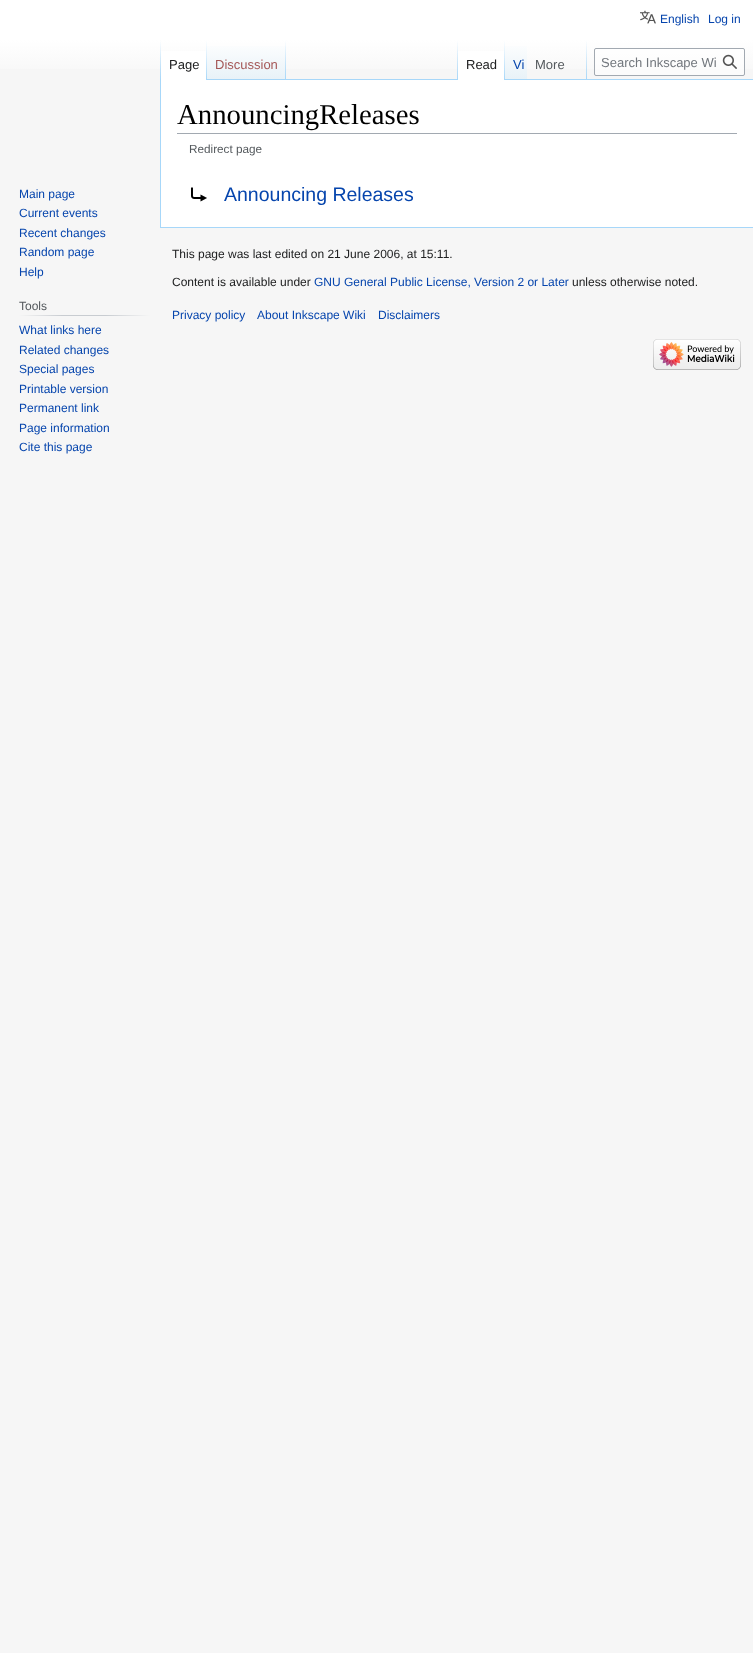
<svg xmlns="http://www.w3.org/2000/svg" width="753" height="1653">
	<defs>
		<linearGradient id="g1" gradientUnits="userSpaceOnUse" x1="377" y1="0" x2="377" y2="80"><stop offset="0.5" stop-color="#FFFFFF" /><stop offset="1" stop-color="#F6F6F6" /></linearGradient>
		<linearGradient id="g2" gradientUnits="userSpaceOnUse" x1="161" y1="40" x2="161" y2="80"><stop offset="0" stop-color="#A7D7F9" stop-opacity="0" /><stop offset="1" stop-color="#A7D7F9" /></linearGradient>
		<linearGradient id="g3" gradientUnits="userSpaceOnUse" x1="207" y1="40" x2="207" y2="80"><stop offset="0" stop-color="#FFFFFF" /><stop offset="1" stop-color="#A7D7F9" /></linearGradient>
		<linearGradient id="g4" gradientUnits="userSpaceOnUse" x1="247" y1="80" x2="247" y2="40"><stop offset="0" stop-color="#77C1F6" /><stop offset="0.03" stop-color="#E8F2F8" /><stop offset="1" stop-color="#FFFFFF" /></linearGradient>
		<linearGradient id="g5" gradientUnits="userSpaceOnUse" x1="286" y1="40" x2="286" y2="80"><stop offset="0" stop-color="#A7D7F9" stop-opacity="0" /><stop offset="1" stop-color="#A7D7F9" /></linearGradient>
		<linearGradient id="g6" gradientUnits="userSpaceOnUse" x1="458" y1="40" x2="458" y2="80"><stop offset="0" stop-color="#A7D7F9" stop-opacity="0" /><stop offset="1" stop-color="#A7D7F9" /></linearGradient>
		<linearGradient id="g7" gradientUnits="userSpaceOnUse" x1="505" y1="40" x2="505" y2="80"><stop offset="0" stop-color="#FFFFFF" /><stop offset="1" stop-color="#A7D7F9" /></linearGradient>
		<linearGradient id="g8" gradientUnits="userSpaceOnUse" x1="516" y1="80" x2="516" y2="40"><stop offset="0" stop-color="#77C1F6" /><stop offset="0.03" stop-color="#E8F2F8" /><stop offset="1" stop-color="#FFFFFF" /></linearGradient>
		<linearGradient id="g9" gradientUnits="userSpaceOnUse" x1="587" y1="40" x2="587" y2="80"><stop offset="0" stop-color="#A7D7F9" stop-opacity="0" /><stop offset="1" stop-color="#A7D7F9" /></linearGradient>
		<linearGradient id="g10" gradientUnits="userSpaceOnUse" x1="19" y1="316" x2="150" y2="316"><stop offset="0" stop-color="#F6F6F6" /><stop offset="0.33" stop-color="#C8CCD1" /><stop offset="0.66" stop-color="#C8CCD1" /><stop offset="1" stop-color="#F6F6F6" /></linearGradient>
	</defs>
	<rect width="100%" height="100%" fill="#F6F6F6" />
	<rect x="0" y="0" width="753" height="69" fill="url(#g1)" />
	<image x="640" y="10" width="16" height="14" href="assets/img1.png" />
	<g font-family="Liberation Sans" font-size="12" fill="#0645AD">
		<text x="660" y="23">English</text>
		<text x="708" y="23">Log in</text>
	</g>
	<rect x="160" y="227" width="593" height="1" fill="#A7D7F9" />
	<rect x="160" y="79" width="1" height="149" fill="#A7D7F9" />
	<rect x="160" y="40" width="1" height="40" fill="url(#g2)" />
	<rect x="161" y="51" width="45" height="29" fill="#FFFFFF" />
	<rect x="206" y="40" width="1" height="40" fill="url(#g3)" />
	<text x="169" y="69" font-family="Liberation Sans" font-size="13" fill="#202122">Page</text>
	<rect x="207" y="46" width="79" height="34" fill="url(#g4)" />
	<rect x="285" y="40" width="1" height="40" fill="url(#g5)" />
	<text x="215" y="69" font-family="Liberation Sans" font-size="13" fill="#A55858">Discussion</text>
	<rect x="286" y="79" width="467" height="1" fill="#A7D7F9" />
	<rect x="457" y="40" width="1" height="40" fill="url(#g6)" />
	<rect x="458" y="51" width="46" height="29" fill="#FFFFFF" />
	<rect x="504" y="40" width="1" height="40" fill="url(#g7)" />
	<text x="466" y="69" font-family="Liberation Sans" font-size="13" fill="#202122">Read</text>
	<rect x="505" y="46" width="22" height="33" fill="url(#g8)" />
	<text x="513" y="69" font-family="Liberation Sans" font-size="13" fill="#0645AD">Vi</text>
	<rect x="586" y="40" width="1" height="40" fill="url(#g9)" />
	<text x="535" y="69" font-family="Liberation Sans" font-size="13" fill="#54595D">More</text>
	<rect x="594.5" y="48.5" width="150" height="27" rx="1.5" fill="#FFFFFF" fill-opacity="0.5" stroke="#A2A9B1" />
	<text x="601" y="67" font-family="Liberation Sans" font-size="13" fill="#72777D">Search Inkscape Wi</text>
	<image x="722" y="54" width="15" height="15" href="assets/img2.png" />
	<g font-family="Liberation Sans" font-size="12" fill="#0645AD">
		<text x="19" y="198">Main page</text>
		<text x="19" y="217">Current events</text>
		<text x="19" y="237">Recent changes</text>
		<text x="19" y="256">Random page</text>
		<text x="19" y="276">Help</text>
	</g>
	<rect x="19" y="315" width="131" height="1" fill="url(#g10)" />
	<text x="19" y="310" font-family="Liberation Sans" font-size="12" fill="#54595D">Tools</text>
	<g font-family="Liberation Sans" font-size="12" fill="#0645AD">
		<text x="19" y="334">What links here</text>
		<text x="19" y="354">Related changes</text>
		<text x="19" y="373">Special pages</text>
		<text x="19" y="393">Printable version</text>
		<text x="19" y="412">Permanent link</text>
		<text x="19" y="432">Page information</text>
		<text x="19" y="451">Cite this page</text>
	</g>
	<rect x="161" y="80" width="592" height="147" fill="#FFFFFF" />
	<rect x="177" y="133" width="560" height="1" fill="#A2A9B1" />
	<text x="177" y="124" font-family="Liberation Serif" font-size="28.75" fill="#000000">AnnouncingReleases</text>
	<text x="189" y="153" font-family="Liberation Sans" font-size="11.75" fill="#54595D">Redirect page</text>
	<image x="191" y="187" width="16" height="15" href="assets/img3.png" />
	<text x="224" y="201" font-family="Liberation Sans" font-size="19.5" fill="#0645AD">Announcing Releases</text>
	<g font-family="Liberation Sans" font-size="12" fill="#202122">
		<text x="172" y="258">This page was last edited on 21 June 2006, at 15:11.</text>
		<text x="172" y="286">Content is available under</text>
	</g>
	<text x="314" y="286" font-family="Liberation Sans" font-size="12" fill="#0645AD">GNU General Public License, Version 2 or Later</text>
	<text x="572" y="286" font-family="Liberation Sans" font-size="12" fill="#202122">unless otherwise noted.</text>
	<g font-family="Liberation Sans" font-size="12" fill="#0645AD">
		<text x="172" y="319">Privacy policy</text>
		<text x="257" y="319">About Inkscape Wiki</text>
		<text x="378" y="319">Disclaimers</text>
	</g>
	<image x="653" y="339" width="88" height="31" href="assets/img4.png" />
</svg>
